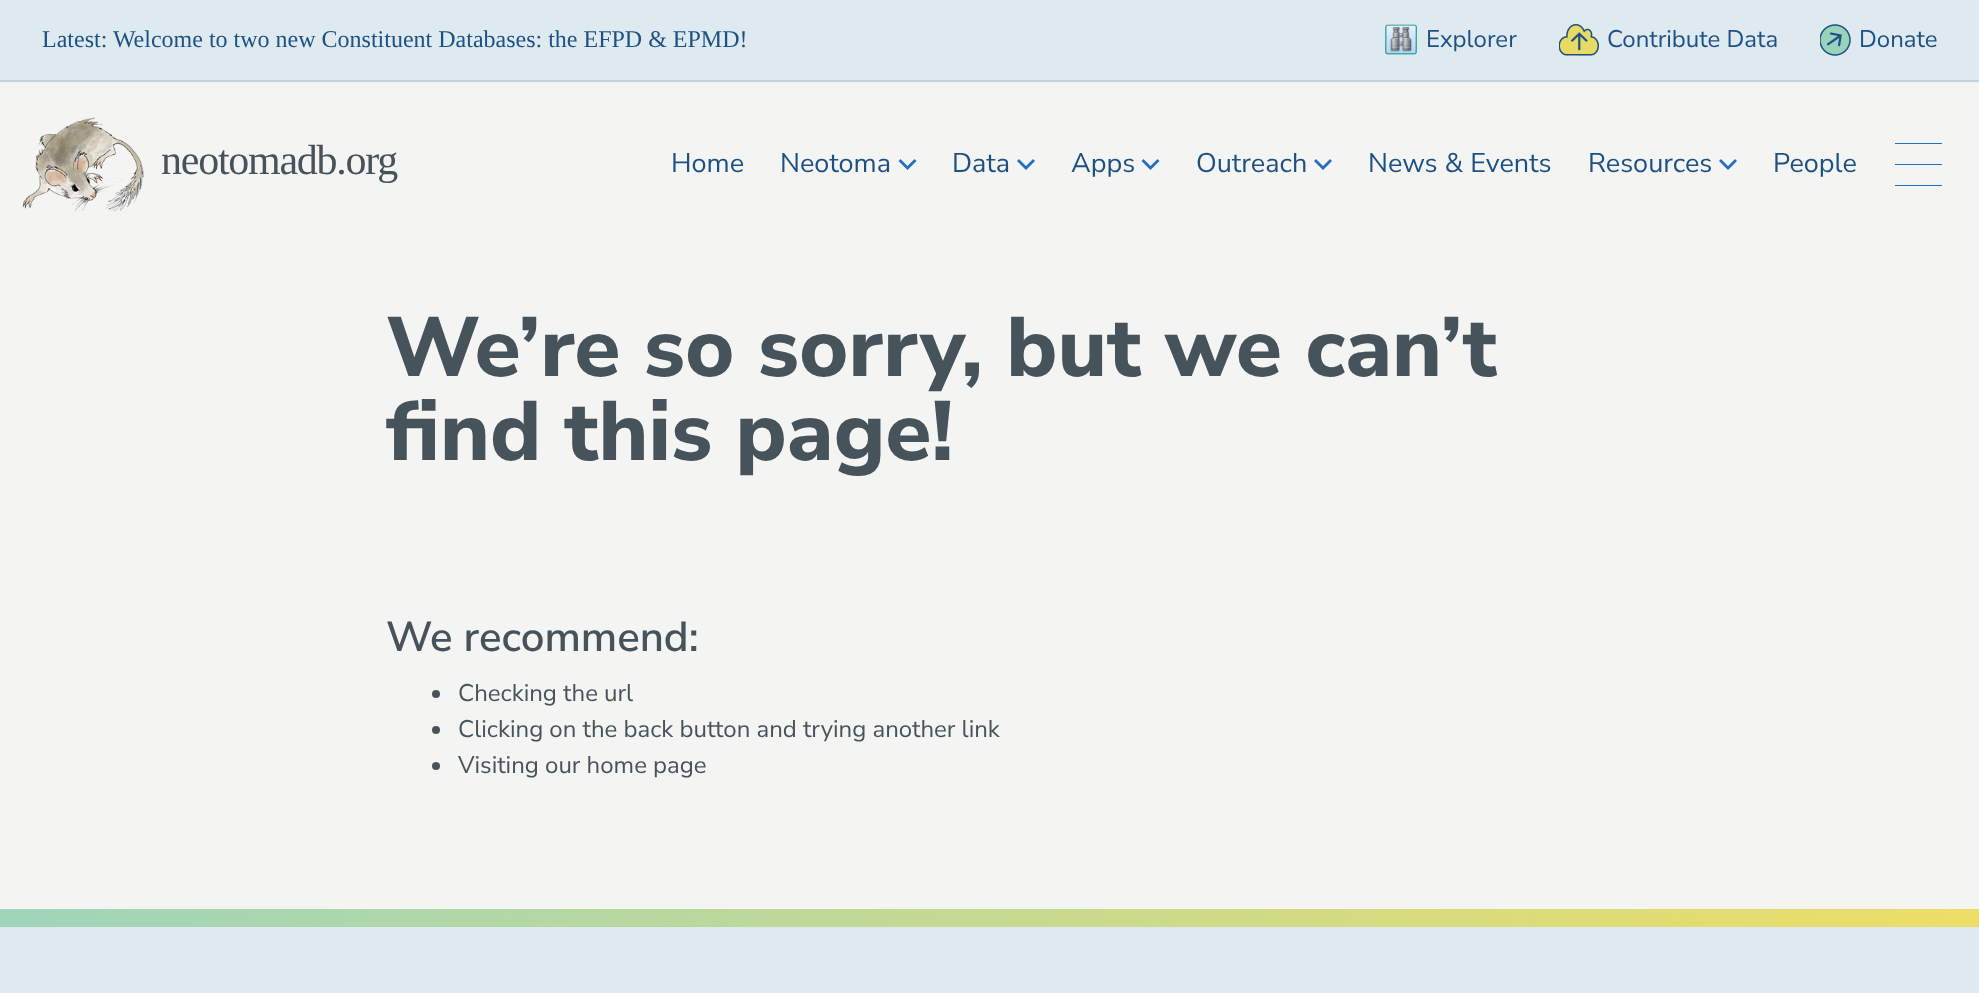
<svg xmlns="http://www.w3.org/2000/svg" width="1979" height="993">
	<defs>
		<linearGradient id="g1" gradientUnits="userSpaceOnUse" x1="0" y1="918" x2="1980" y2="918"><stop offset="0" stop-color="#9FD5BB" /><stop offset="1" stop-color="#EDDE66" /></linearGradient>
	</defs>
	<rect width="100%" height="100%" fill="#F4F4F2" />
	<rect x="0" y="0" width="1979" height="80" fill="#DFE9F0" />
	<rect x="0" y="80" width="1979" height="2" fill="#C0D2E2" />
	<text x="42" y="47" font-family="Liberation Serif" font-size="24" fill="#1D5183">Latest: Welcome to two new Constituent Databases: the EFPD &amp; EPMD!</text>
	<image x="1385" y="24" width="32" height="31" href="assets/img1.png" />
	<text x="1426" y="47" font-family="Nunito Sans" font-size="24" fill="#1D5183">Explorer</text>
	<image x="1559" y="24" width="40" height="32" href="assets/img2.png" />
	<text x="1607" y="47" font-family="Nunito Sans" font-size="24" fill="#1D5183">Contribute Data</text>
	<image x="1820" y="24" width="31" height="32" href="assets/img3.png" />
	<text x="1859" y="47" font-family="Nunito Sans" font-size="24" fill="#1D5183">Donate</text>
	<image x="22" y="117" width="122" height="95" href="assets/img4.png" />
	<text x="161" y="174" font-family="Liberation Serif" font-size="42" letter-spacing="-1.25" fill="#47535B">neotomadb.org</text>
	<g font-family="Nunito Sans" font-size="27" fill="#1D5183">
		<text x="671" y="172">Home</text>
		<text x="780" y="172">Neotoma</text>
	</g>
	<path d="M914.5 159L907.5 166L900.5 159L898.5 161L907.5 170L916.5 161Z" fill="#266EC0" />
	<text x="952" y="172" font-family="Nunito Sans" font-size="27" fill="#1D5183">Data</text>
	<path d="M1033 159L1026 166L1019 159L1017 161L1026 170L1035 161Z" fill="#266EC0" />
	<text x="1071" y="172" font-family="Nunito Sans" font-size="27" fill="#1D5183">Apps</text>
	<path d="M1157.5 159L1150.5 166L1143.5 159L1141.5 161L1150.5 170L1159.5 161Z" fill="#266EC0" />
	<text x="1196" y="172" font-family="Nunito Sans" font-size="27" fill="#1D5183">Outreach</text>
	<path d="M1330 159L1323 166L1316 159L1314 161L1323 170L1332 161Z" fill="#266EC0" />
	<g font-family="Nunito Sans" font-size="27" fill="#1D5183">
		<text x="1368" y="172">News &amp; Events</text>
		<text x="1588" y="172">Resources</text>
	</g>
	<path d="M1735 159L1728 166L1721 159L1719 161L1728 170L1737 161Z" fill="#266EC0" />
	<text x="1773" y="172" font-family="Nunito Sans" font-size="27" fill="#1D5183">People</text>
	<rect x="1895" y="164" width="47" height="1" fill="#266EC0" />
	<rect x="1895" y="185" width="47" height="1" fill="#266EC0" />
	<rect x="1895" y="143" width="47" height="1" fill="#266EC0" />
	<g font-family="Nunito Sans" font-size="84" font-weight="800" fill="#47535B">
		<text x="386" y="376">We’re so sorry, but we can’t</text>
		<text x="386" y="460">find this page!</text>
	</g>
	<text x="386" y="651" font-family="Nunito Sans" font-size="42" font-weight="600" fill="#47535B">We recommend:</text>
	<circle cx="436" cy="694" r="4" fill="#47535B" />
	<text x="458" y="701" font-family="Nunito Sans" font-size="24" fill="#47535B">Checking the url</text>
	<circle cx="436" cy="730" r="4" fill="#47535B" />
	<text x="458" y="737" font-family="Nunito Sans" font-size="24" fill="#47535B">Clicking on the back button and trying another link</text>
	<circle cx="436" cy="766" r="4" fill="#47535B" />
	<text x="458" y="773" font-family="Nunito Sans" font-size="24" fill="#47535B">Visiting our home page</text>
	<rect x="0" y="927" width="1979" height="66" fill="#DFE9F0" />
	<rect x="0" y="909" width="1979" height="18" fill="url(#g1)" />
</svg>
